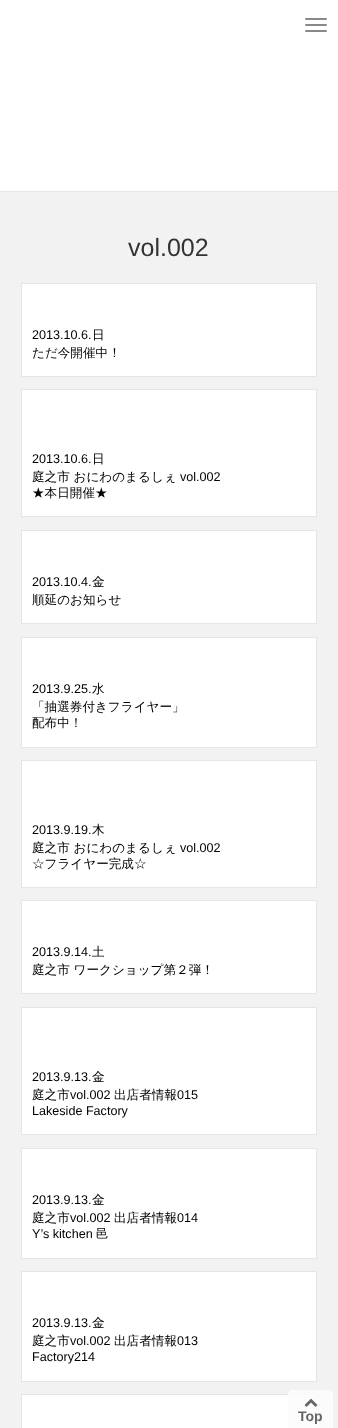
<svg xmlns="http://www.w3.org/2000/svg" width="338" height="1428">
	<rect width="100%" height="100%" fill="#F2F2F2" />
	<rect x="0" y="0" width="338" height="191" fill="#FFFFFF" />
	<rect x="0" y="191" width="338" height="1" fill="#E7E7E7" />
	<rect x="305" y="18" width="22" height="2" rx="1" fill="#888888" />
	<rect x="305" y="24" width="22" height="2" rx="1" fill="#888888" />
	<rect x="305" y="30" width="22" height="2" rx="1" fill="#888888" />
	<text x="128" y="256" font-family="Liberation Sans" font-size="25" fill="#333333">vol.002</text>
	<rect x="21.5" y="283.5" width="295" height="93" fill="#FFFFFF" stroke="#E5E5E5" />
	<text x="32" y="339" font-family="Liberation Sans" font-size="12.6" fill="#000000">2013.10.6.</text>
	<g font-family="WenQuanYi Zen Hei" font-size="12.6" font-weight="500" fill="#000000">
		<text x="92" y="339">日</text>
		<text x="32" y="357">ただ今開催中！</text>
	</g>
	<rect x="21.5" y="389.5" width="295" height="127" fill="#FFFFFF" stroke="#E5E5E5" />
	<text x="32" y="463" font-family="Liberation Sans" font-size="12.6" fill="#000000">2013.10.6.</text>
	<g font-family="WenQuanYi Zen Hei" font-size="12.6" font-weight="500" fill="#000000">
		<text x="92" y="463">日</text>
		<text x="32" y="481">庭之市 おにわのまるしぇ</text>
	</g>
	<text x="180" y="481" font-family="Liberation Sans" font-size="12.6" fill="#000000">vol.002</text>
	<text x="32" y="497" font-family="WenQuanYi Zen Hei" font-size="12.6" font-weight="500" fill="#000000">★本日開催★</text>
	<rect x="21.5" y="530.5" width="295" height="93" fill="#FFFFFF" stroke="#E5E5E5" />
	<text x="32" y="586" font-family="Liberation Sans" font-size="12.6" fill="#000000">2013.10.4.</text>
	<g font-family="WenQuanYi Zen Hei" font-size="12.6" font-weight="500" fill="#000000">
		<text x="92" y="586">金</text>
		<text x="32" y="604">順延のお知らせ</text>
	</g>
	<rect x="21.5" y="637.5" width="295" height="110" fill="#FFFFFF" stroke="#E5E5E5" />
	<text x="32" y="693" font-family="Liberation Sans" font-size="12.6" fill="#000000">2013.9.25.</text>
	<g font-family="WenQuanYi Zen Hei" font-size="12.6" font-weight="500" fill="#000000">
		<text x="92" y="693">水</text>
		<text x="32" y="711">「抽選券付きフライヤー」</text>
		<text x="32" y="727">配布中！</text>
	</g>
	<rect x="21.5" y="760.5" width="295" height="127" fill="#FFFFFF" stroke="#E5E5E5" />
	<text x="32" y="834" font-family="Liberation Sans" font-size="12.6" fill="#000000">2013.9.19.</text>
	<g font-family="WenQuanYi Zen Hei" font-size="12.6" font-weight="500" fill="#000000">
		<text x="92" y="834">木</text>
		<text x="32" y="852">庭之市 おにわのまるしぇ</text>
	</g>
	<text x="180" y="852" font-family="Liberation Sans" font-size="12.6" fill="#000000">vol.002</text>
	<text x="32" y="868" font-family="WenQuanYi Zen Hei" font-size="12.6" font-weight="500" fill="#000000">☆フライヤー完成☆</text>
	<rect x="21.5" y="900.5" width="295" height="93" fill="#FFFFFF" stroke="#E5E5E5" />
	<text x="32" y="956" font-family="Liberation Sans" font-size="12.6" fill="#000000">2013.9.14.</text>
	<g font-family="WenQuanYi Zen Hei" font-size="12.6" font-weight="500" fill="#000000">
		<text x="92" y="956">土</text>
		<text x="32" y="974">庭之市 ワークショップ第２弾！</text>
	</g>
	<rect x="21.5" y="1007.5" width="295" height="127" fill="#FFFFFF" stroke="#E5E5E5" />
	<text x="32" y="1081" font-family="Liberation Sans" font-size="12.6" fill="#000000">2013.9.13.</text>
	<g font-family="WenQuanYi Zen Hei" font-size="12.6" font-weight="500" fill="#000000">
		<text x="92" y="1081">金</text>
		<text x="32" y="1099">庭之市</text>
	</g>
	<text x="70" y="1099" font-family="Liberation Sans" font-size="12.6" fill="#000000">vol.002</text>
	<text x="114" y="1099" font-family="WenQuanYi Zen Hei" font-size="12.6" font-weight="500" fill="#000000">出店者情報</text>
	<g font-family="Liberation Sans" font-size="12.6" fill="#000000">
		<text x="177" y="1099">015</text>
		<text x="32" y="1115">Lakeside Factory</text>
	</g>
	<rect x="21.5" y="1148.5" width="295" height="110" fill="#FFFFFF" stroke="#E5E5E5" />
	<text x="32" y="1204" font-family="Liberation Sans" font-size="12.6" fill="#000000">2013.9.13.</text>
	<g font-family="WenQuanYi Zen Hei" font-size="12.6" font-weight="500" fill="#000000">
		<text x="92" y="1204">金</text>
		<text x="32" y="1222">庭之市</text>
	</g>
	<text x="70" y="1222" font-family="Liberation Sans" font-size="12.6" fill="#000000">vol.002</text>
	<text x="114" y="1222" font-family="WenQuanYi Zen Hei" font-size="12.6" font-weight="500" fill="#000000">出店者情報</text>
	<g font-family="Liberation Sans" font-size="12.6" fill="#000000">
		<text x="177" y="1222">014</text>
		<text x="32" y="1238">Y’s kitchen</text>
	</g>
	<text x="96" y="1238" font-family="WenQuanYi Zen Hei" font-size="12.6" font-weight="500" fill="#000000">邑</text>
	<rect x="21.5" y="1271.5" width="295" height="110" fill="#FFFFFF" stroke="#E5E5E5" />
	<text x="32" y="1327" font-family="Liberation Sans" font-size="12.6" fill="#000000">2013.9.13.</text>
	<g font-family="WenQuanYi Zen Hei" font-size="12.6" font-weight="500" fill="#000000">
		<text x="92" y="1327">金</text>
		<text x="32" y="1345">庭之市</text>
	</g>
	<text x="70" y="1345" font-family="Liberation Sans" font-size="12.6" fill="#000000">vol.002</text>
	<text x="114" y="1345" font-family="WenQuanYi Zen Hei" font-size="12.6" font-weight="500" fill="#000000">出店者情報</text>
	<g font-family="Liberation Sans" font-size="12.6" fill="#000000">
		<text x="177" y="1345">013</text>
		<text x="32" y="1361">Factory214</text>
	</g>
	<rect x="21.5" y="1394.5" width="295" height="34" fill="#FFFFFF" stroke="#E5E5E5" />
	<path d="M293 1390H328C331 1390 333 1392 333 1395V1428H288V1395C288 1392 290 1390 293 1390Z" fill="#FCFCFC" fill-opacity="0.9" />
	<image x="304" y="1398" width="14" height="9" href="assets/img1.png" />
	<text x="298" y="1421" font-family="Liberation Sans" font-size="14" font-weight="700" fill="#666666">Top</text>
</svg>
